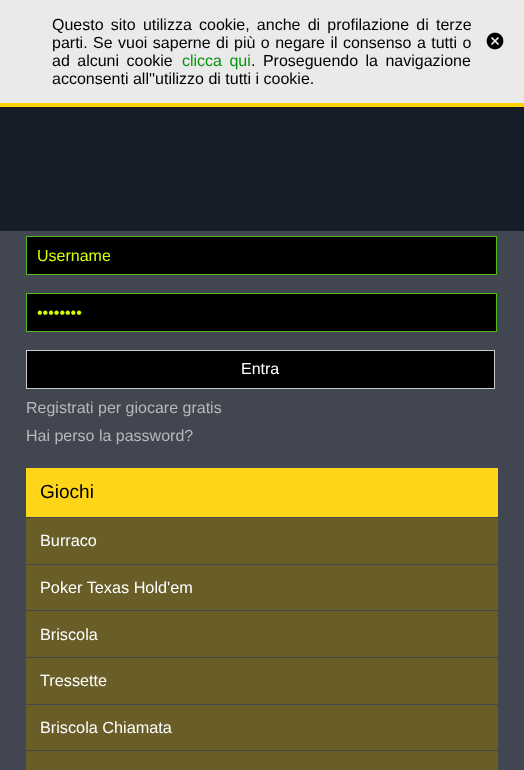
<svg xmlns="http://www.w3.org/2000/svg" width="524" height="770">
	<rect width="100%" height="100%" fill="#161D29" />
	<rect x="0" y="0" width="524" height="103" fill="#EAEAEA" />
	<rect x="0" y="103" width="524" height="4" fill="#FFD103" />
	<g font-family="Liberation Sans" font-size="16" fill="#000000">
		<text x="52" y="30" word-spacing="2.75">Questo sito utilizza cookie, anche di profilazione di terze</text>
		<text x="52" y="48" word-spacing="1">parti. Se vuoi saperne di più o negare il consenso a tutti o</text>
	</g>
	<image x="486" y="32" width="18" height="18" href="assets/img1.png" />
	<text x="52" y="66" word-spacing="3" font-family="Liberation Sans" font-size="16" fill="#000000">ad alcuni cookie</text>
	<text x="182" y="66" word-spacing="3" font-family="Liberation Sans" font-size="16" fill="#02920C">clicca qui</text>
	<g font-family="Liberation Sans" font-size="16" fill="#000000">
		<text x="251" y="66" word-spacing="3">. Proseguendo la navigazione</text>
		<text x="52" y="84">acconsenti all''utilizzo di tutti i cookie.</text>
	</g>
	<rect x="0" y="231" width="524" height="539" fill="#424651" />
	<rect x="26.5" y="236.5" width="470" height="38" fill="#000000" stroke="#50BB20" />
	<text x="37" y="261" font-family="Liberation Sans" font-size="16" fill="#D6FF01">Username</text>
	<rect x="26.5" y="293.5" width="470" height="38" fill="#000000" stroke="#50BB20" />
	<text x="37" y="318" font-family="Liberation Sans" font-size="16" fill="#D6FF01">••••••••</text>
	<rect x="26.5" y="350.5" width="468" height="38" fill="#000000" stroke="#CBCBCB" />
	<text x="241" y="374" font-family="Liberation Sans" font-size="16" fill="#FFFFFF">Entra</text>
	<g font-family="Liberation Sans" font-size="16" fill="#B8B8B8">
		<text x="26" y="413">Registrati per giocare gratis</text>
		<text x="26" y="441">Hai perso la password?</text>
	</g>
	<rect x="26" y="468" width="472" height="49" fill="#FED519" />
	<text x="40" y="498" font-family="Liberation Sans" font-size="19" fill="#000000">Giochi</text>
	<rect x="26" y="518" width="472" height="46" fill="#6A5E28" />
	<text x="40" y="546" font-family="Liberation Sans" font-size="16.25" fill="#FFFFFF">Burraco</text>
	<rect x="26" y="565" width="472" height="45" fill="#6A5E28" />
	<text x="40" y="593" font-family="Liberation Sans" font-size="16.25" fill="#FFFFFF">Poker Texas Hold'em</text>
	<rect x="26" y="611" width="472" height="46" fill="#6A5E28" />
	<text x="40" y="640" font-family="Liberation Sans" font-size="16.25" fill="#FFFFFF">Briscola</text>
	<rect x="26" y="658" width="472" height="46" fill="#6A5E28" />
	<text x="40" y="686" font-family="Liberation Sans" font-size="16.25" fill="#FFFFFF">Tressette</text>
	<rect x="26" y="705" width="472" height="45" fill="#6A5E28" />
	<text x="40" y="733" font-family="Liberation Sans" font-size="16.25" fill="#FFFFFF">Briscola Chiamata</text>
	<rect x="26" y="751" width="472" height="19" fill="#6A5E28" />
</svg>
